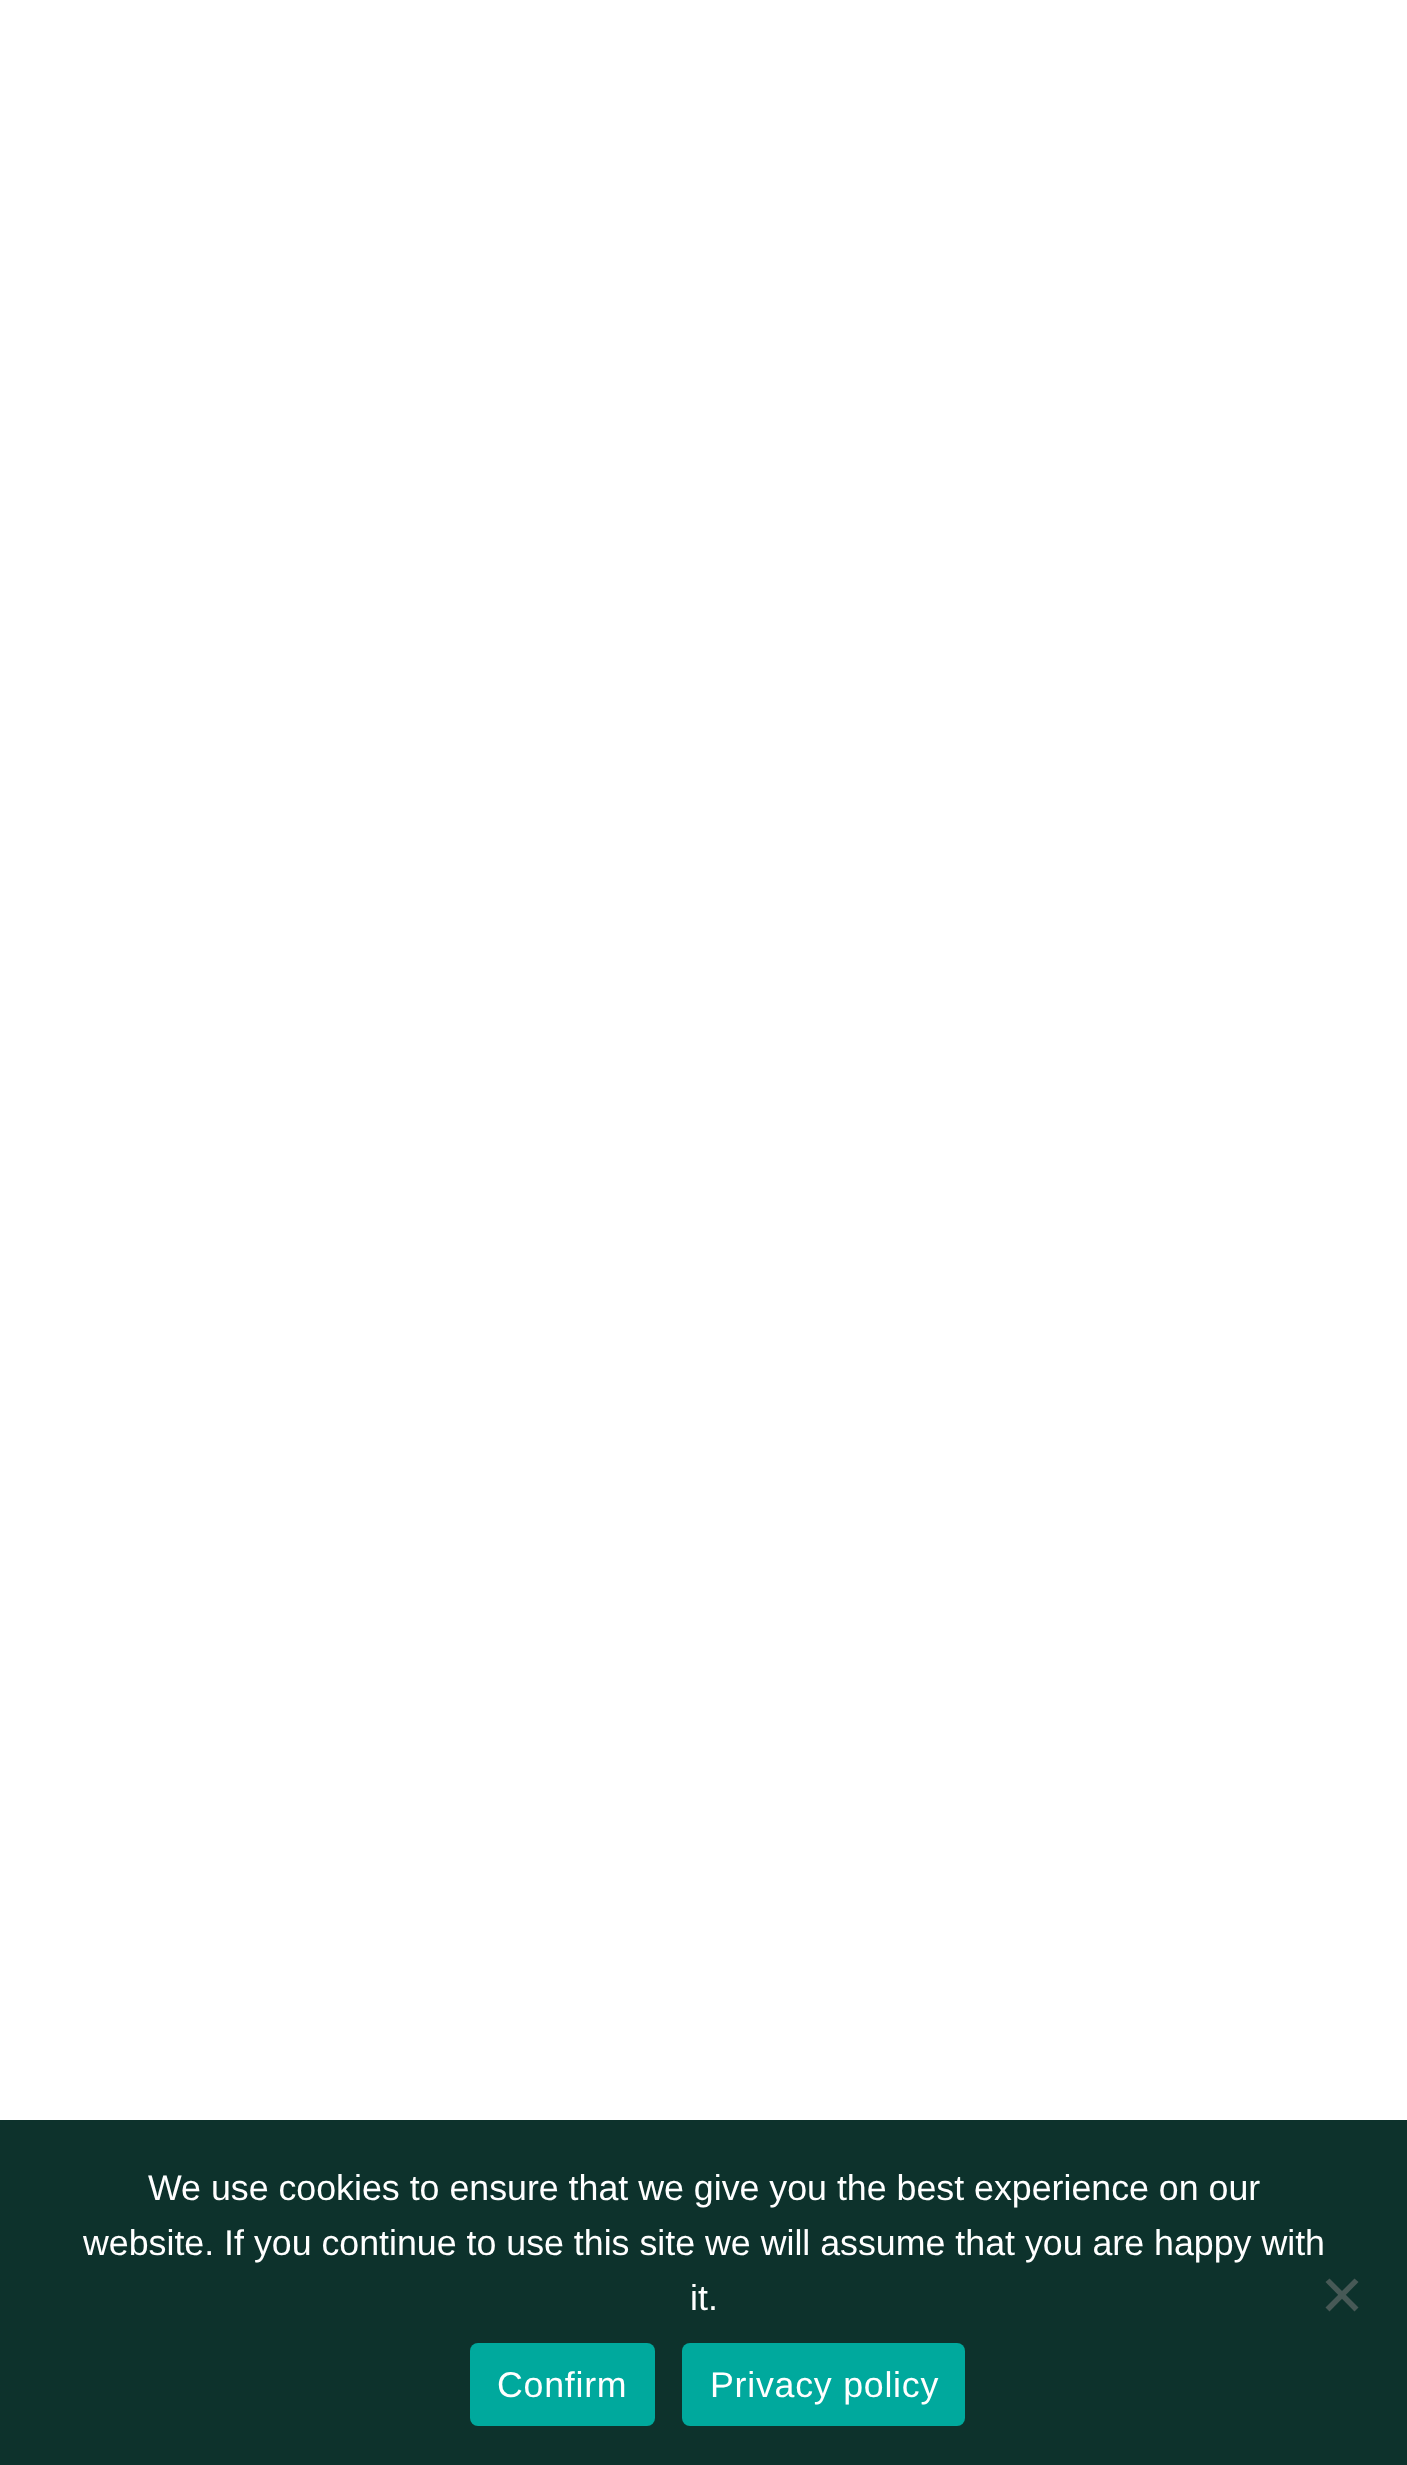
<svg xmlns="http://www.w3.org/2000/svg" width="1407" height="2465">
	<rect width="100%" height="100%" fill="#FFFFFF" />
	<rect x="0" y="2120" width="1407" height="345" fill="#0D322C" />
	<g font-family="Liberation Sans" font-size="35.75" fill="#FFFFFF">
		<text x="148" y="2200">We use cookies to ensure that we give you the best experience on our</text>
		<text x="83" y="2255">website. If you continue to use this site we will assume that you are happy with</text>
		<text x="690" y="2310">it.</text>
	</g>
	<path d="M1354.5 2278.5L1358.5 2282L1329.5 2311.5L1325.5 2307.5Z" fill="#475956" />
	<path d="M1325.5 2282L1329.5 2278.5L1358.5 2307.5L1354.5 2311.5Z" fill="#475956" />
	<rect x="470" y="2343" width="185" height="83" rx="8" fill="#00A99D" />
	<text x="497" y="2397" font-family="Liberation Sans" font-size="35.75" letter-spacing="0.75" fill="#FFFFFF">Confirm</text>
	<rect x="682" y="2343" width="283" height="83" rx="8" fill="#00A99D" />
	<text x="710" y="2397" font-family="Liberation Sans" font-size="35.75" letter-spacing="0.75" fill="#FFFFFF">Privacy policy</text>
</svg>
